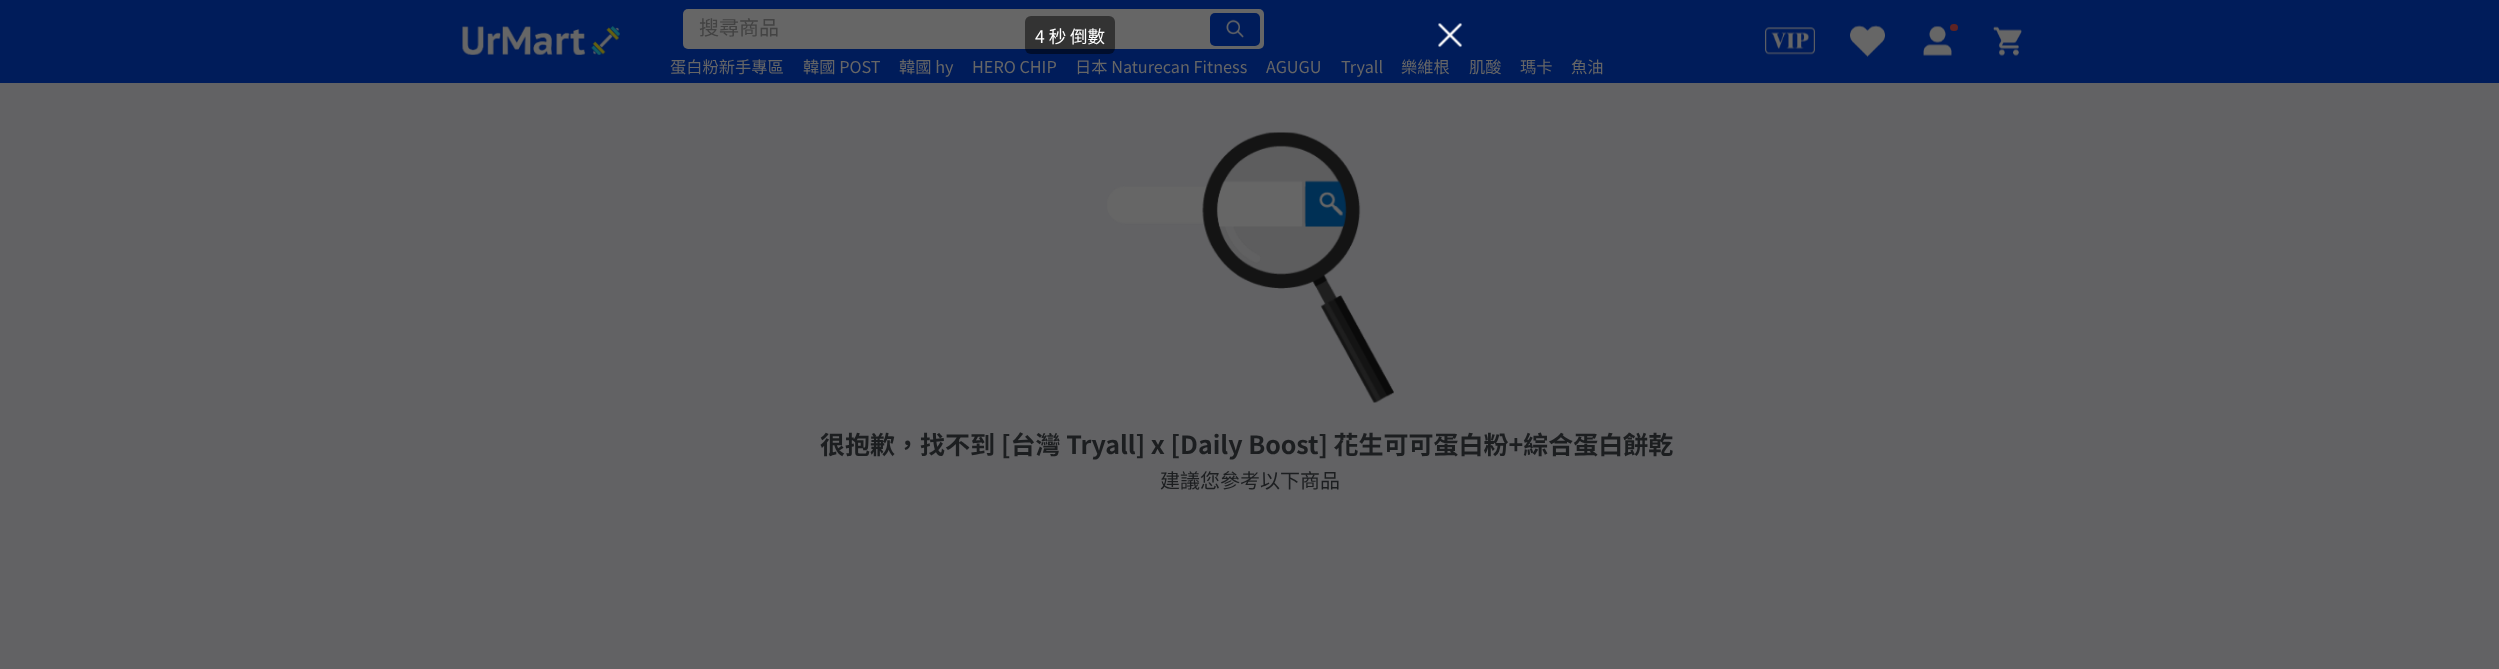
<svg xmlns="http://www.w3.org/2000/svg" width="2499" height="669">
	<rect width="100%" height="100%" fill="#626264" />
	<rect x="0" y="0" width="2499" height="83" fill="#001C5A" />
	<image x="462" y="26" width="158" height="29" href="assets/img1.png" />
	<rect x="683" y="9" width="581" height="40" rx="5" fill="#666666" />
	<text x="699" y="35" font-family="Noto Sans CJK TC" font-size="20" fill="#434343">搜尋商品</text>
	<rect x="1210" y="13" width="50" height="33" rx="5" fill="#001C5A" />
	<image x="1226" y="19" width="18" height="19" href="assets/img2.png" />
	<g font-family="Noto Sans TC" font-size="16.25" fill="#666666">
		<text x="670" y="73">蛋白粉新手專區</text>
		<text x="803" y="73">韓國 POST</text>
		<text x="899" y="73">韓國 hy</text>
		<text x="972" y="73">HERO CHIP</text>
		<text x="1075" y="73">日本 Naturecan Fitness</text>
		<text x="1266" y="73">AGUGU</text>
		<text x="1341" y="73">Tryall</text>
		<text x="1401" y="73">樂維根</text>
		<text x="1469" y="73">肌酸</text>
		<text x="1520" y="73">瑪卡</text>
		<text x="1571" y="73">魚油</text>
	</g>
	<image x="1765" y="27" width="50" height="28" href="assets/img3.png" />
	<image x="1850" y="25" width="35" height="32" href="assets/img4.png" />
	<image x="1923" y="25" width="29" height="31" href="assets/img5.png" />
	<rect x="1950" y="24" width="8" height="7" rx="3.5" fill="#5E2323" />
	<image x="1993" y="26" width="29" height="30" href="assets/img6.png" />
	<image x="1107" y="132" width="287" height="271" href="assets/img7.png" />
	<g font-family="Noto Sans TC" font-size="25" font-weight="700" fill="#1C1E20">
		<text x="820" y="454">很抱歉，找不到</text>
		<text x="1001" y="454">[台灣 Tryall] x [Daily Boost] 花生可可蛋白粉+綜合蛋白餅乾</text>
	</g>
	<text x="1160" y="488" font-family="Noto Sans TC" font-size="20" fill="#1C1E20">建議您參考以下商品</text>
	<rect x="1025" y="16" width="90" height="38" rx="6" fill="#000000" fill-opacity="0.5" />
	<text x="1035" y="43" font-family="Noto Sans TC" font-size="17.5" fill="#FFFFFF">4 秒 倒數</text>
	<image x="1438" y="23" width="25" height="25" href="assets/img8.png" />
</svg>
